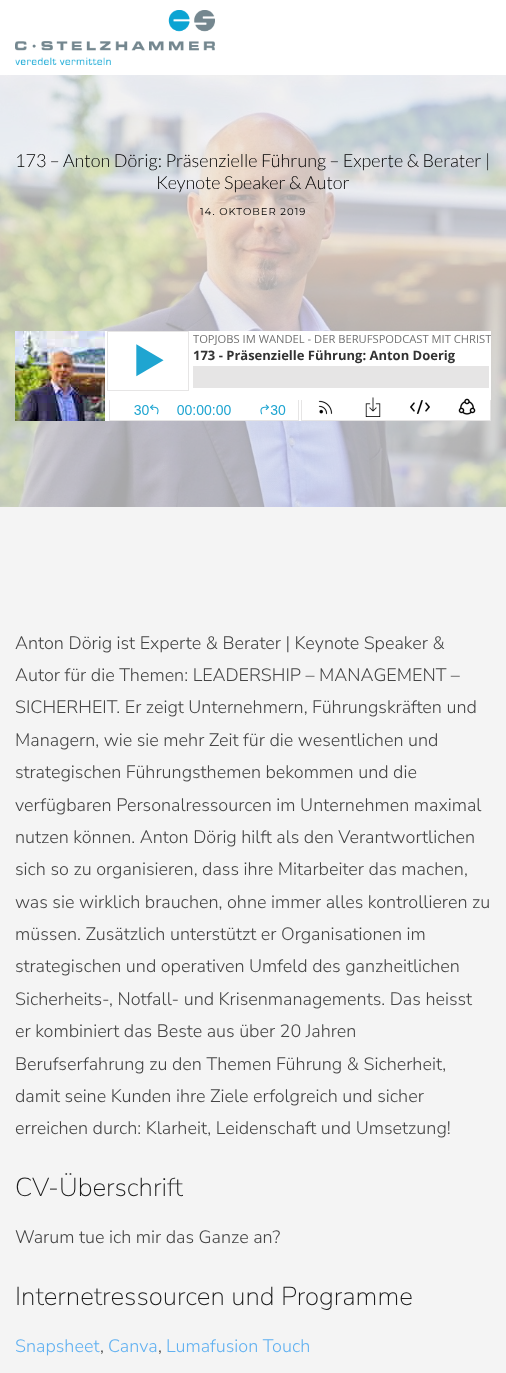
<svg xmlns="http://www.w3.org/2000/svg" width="506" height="1373">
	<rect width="100%" height="100%" fill="#F4F4F4" />
	<rect x="0" y="0" width="506" height="75" fill="#FFFFFF" />
	<image x="15" y="10" width="200" height="55" href="assets/img1.png" />
	<image x="0" y="75" width="506" height="432" href="assets/img2.png" />
	<g font-family="Lato" font-size="18" font-weight="300" fill="#000000">
		<text x="15" y="167">173 – Anton Dörig: Präsenzielle Führung – Experte &amp; Berater |</text>
		<text x="156" y="189">Keynote Speaker &amp; Autor</text>
	</g>
	<text x="200" y="215" font-family="Montserrat" font-size="10" letter-spacing="1" fill="#000000">14. OKTOBER 2019</text>
	<image x="15" y="331" width="476" height="90" href="assets/img3.png" />
	<g font-family="Nunito Sans" font-size="18" font-weight="300" fill="#444444">
		<text x="15" y="649">Anton Dörig ist Experte &amp; Berater | Keynote Speaker &amp;</text>
		<text x="15" y="681">Autor für die Themen: LEADERSHIP – MANAGEMENT –</text>
		<text x="15" y="713">SICHERHEIT. Er zeigt Unternehmern, Führungskräften und</text>
		<text x="15" y="746">Managern, wie sie mehr Zeit für die wesentlichen und</text>
		<text x="15" y="778">strategischen Führungsthemen bekommen und die</text>
		<text x="15" y="811">verfügbaren Personalressourcen im Unternehmen maximal</text>
		<text x="15" y="843">nutzen können. Anton Dörig hilft als den Verantwortlichen</text>
		<text x="15" y="875">sich so zu organisieren, dass ihre Mitarbeiter das machen,</text>
		<text x="15" y="908">was sie wirklich brauchen, ohne immer alles kontrollieren zu</text>
		<text x="15" y="940">müssen. Zusätzlich unterstützt er Organisationen im</text>
		<text x="15" y="972">strategischen und operativen Umfeld des ganzheitlichen</text>
		<text x="15" y="1005">Sicherheits-, Notfall- und Krisenmanagements. Das heisst</text>
		<text x="15" y="1037">er kombiniert das Beste aus über 20 Jahren</text>
		<text x="15" y="1070">Berufserfahrung zu den Themen Führung &amp; Sicherheit,</text>
		<text x="15" y="1102">damit seine Kunden ihre Ziele erfolgreich und sicher</text>
		<text x="15" y="1134">erreichen durch: Klarheit, Leidenschaft und Umsetzung!</text>
	</g>
	<text x="15" y="1196" font-family="Nunito Sans" font-size="26" font-weight="200" fill="#1B1B1B">CV-Überschrift</text>
	<text x="15" y="1243" font-family="Nunito Sans" font-size="18" font-weight="300" fill="#444444">Warum tue ich mir das Ganze an?</text>
	<text x="15" y="1305" font-family="Nunito Sans" font-size="26" font-weight="200" fill="#1B1B1B">Internetressourcen und Programme</text>
	<text x="15" y="1352" font-family="Nunito Sans" font-size="18" font-weight="300" fill="#61B1F1">Snapsheet</text>
	<text x="100" y="1352" font-family="Nunito Sans" font-size="18" font-weight="300" fill="#444444">,</text>
	<text x="108" y="1352" font-family="Nunito Sans" font-size="18" font-weight="300" fill="#61B1F1">Canva</text>
	<text x="158" y="1352" font-family="Nunito Sans" font-size="18" font-weight="300" fill="#444444">,</text>
	<text x="166" y="1352" font-family="Nunito Sans" font-size="18" font-weight="300" fill="#61B1F1">Lumafusion Touch</text>
</svg>
